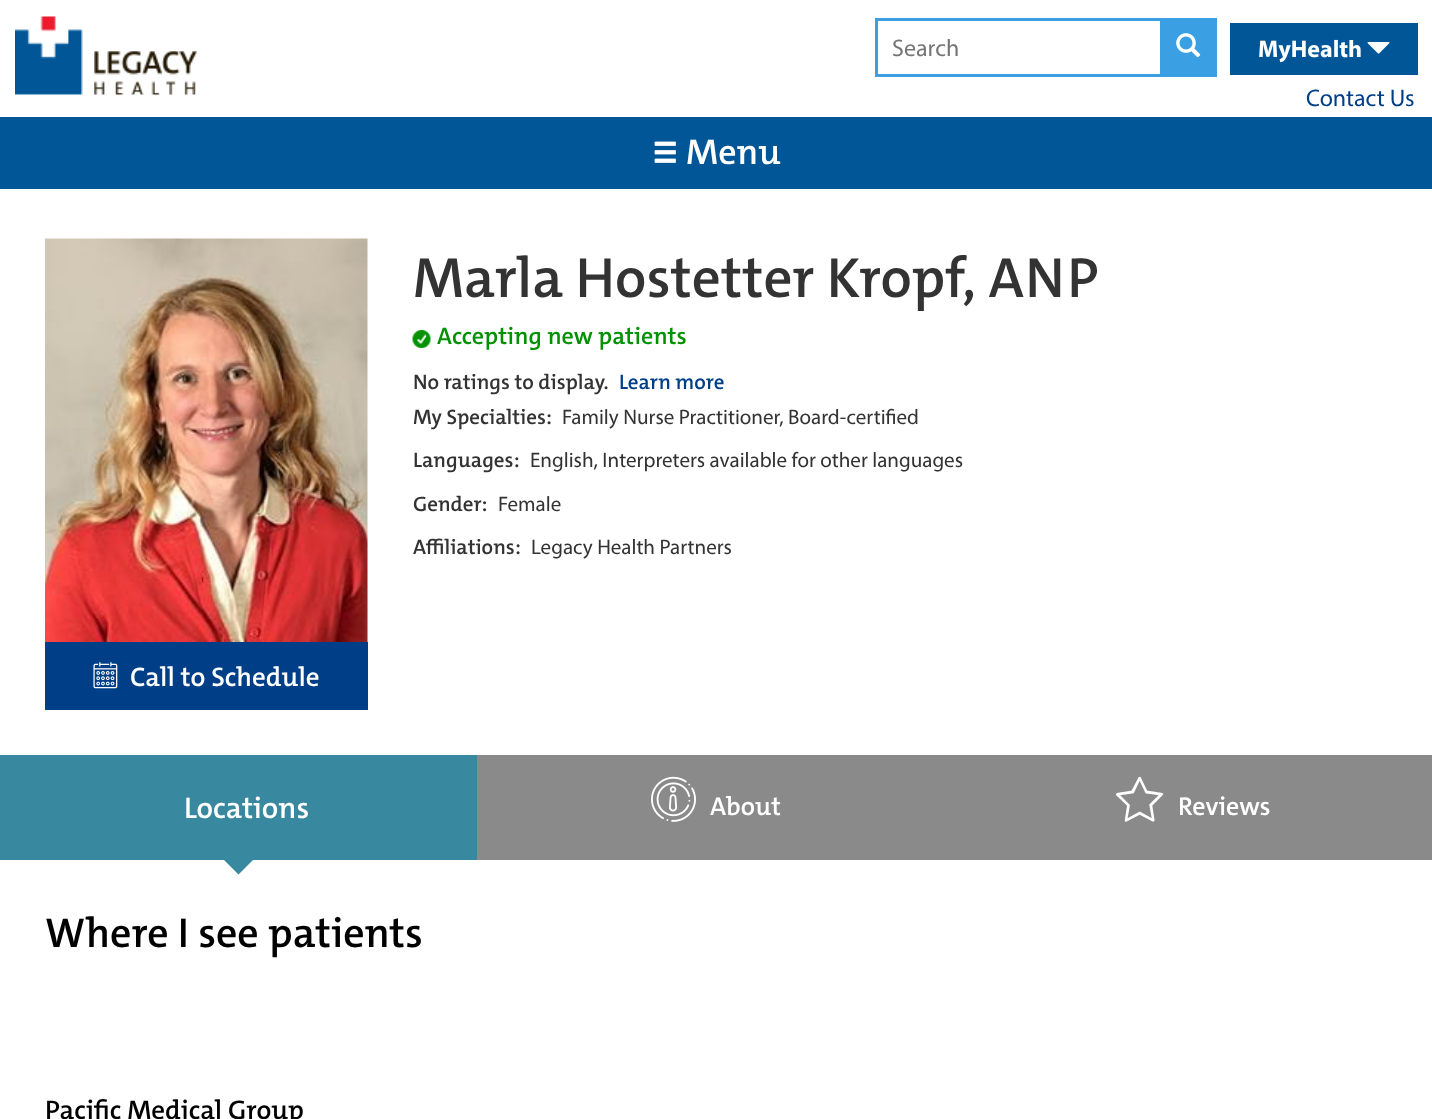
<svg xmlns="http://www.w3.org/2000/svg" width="1432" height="1119">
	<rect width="100%" height="100%" fill="#FFFFFF" />
	<image x="15" y="16" width="182" height="79" href="assets/img1.png" />
	<rect x="876.5" y="19.5" width="286" height="56" fill="none" stroke="#3AA0E3" stroke-width="3" />
	<text x="892" y="56" font-family="Myriad" font-size="24" fill="#757575">Search</text>
	<rect x="1160" y="18" width="57" height="59" fill="#3AA0E3" />
	<image x="1176" y="33" width="25" height="25" href="assets/img2.png" />
	<rect x="1230" y="23" width="188" height="52" fill="#005696" />
	<text x="1258" y="57" font-family="Myriad" font-size="24" font-weight="700" fill="#FFFFFF">MyHealth</text>
	<image x="1367" y="42" width="23" height="12" href="assets/img3.png" />
	<text x="1306" y="106" font-family="Myriad" font-size="24" fill="#003F87">Contact Us</text>
	<rect x="0" y="117" width="1432" height="72" fill="#005696" />
	<image x="654" y="141" width="22" height="22" href="assets/img4.png" />
	<text x="686" y="164" font-family="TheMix" font-size="36" font-weight="600" fill="#FFFFFF">Menu</text>
	<text x="413" y="297" font-family="TheMix" font-size="57" font-weight="600" fill="#333333">Marla Hostetter Kropf, ANP</text>
	<image x="412" y="330" width="19" height="18" href="assets/img5.png" />
	<text x="437" y="344" font-family="TheMix" font-size="24" font-weight="600" fill="#009200">Accepting new patients</text>
	<text x="413" y="389" font-family="TheMix" font-size="21" font-weight="600" fill="#333333">No ratings to display.</text>
	<text x="619" y="389" font-family="TheMix" font-size="21" font-weight="600" fill="#003F87">Learn more</text>
	<text x="413" y="424" font-family="TheMix" font-size="21" font-weight="600" fill="#333333">My Specialties:</text>
	<text x="562" y="424" font-family="Myriad" font-size="21" fill="#333333">Family Nurse Practitioner, Board-certified</text>
	<text x="413" y="467" font-family="TheMix" font-size="21" font-weight="600" fill="#333333">Languages:</text>
	<text x="530" y="467" font-family="Myriad" font-size="21" fill="#333333">English, Interpreters available for other languages</text>
	<text x="413" y="511" font-family="TheMix" font-size="21" font-weight="600" fill="#333333">Gender:</text>
	<text x="498" y="511" font-family="Myriad" font-size="21" fill="#333333">Female</text>
	<text x="413" y="554" font-family="TheMix" font-size="21" font-weight="600" fill="#333333">Affiliations:</text>
	<text x="531" y="554" font-family="Myriad" font-size="21" fill="#333333">Legacy Health Partners</text>
	<image x="45" y="238" width="323" height="404" href="assets/img6.png" />
	<rect x="45" y="642" width="323" height="68" fill="#003F87" />
	<image x="93" y="662" width="25" height="27" href="assets/img7.png" />
	<text x="130" y="686" font-family="TheMix" font-size="27" font-weight="600" fill="#FFFFFF">Call to Schedule</text>
	<rect x="0" y="755" width="477" height="105" fill="#3888A0" />
	<text x="184" y="818" font-family="TheMix" font-size="30" font-weight="600" fill="#FFFFFF">Locations</text>
	<path d="M223.5 859.5H253.5L238.5 874.5Z" fill="#3888A0" />
	<rect x="477" y="755" width="955" height="105" fill="#8A8A8A" />
	<image x="651" y="776" width="45" height="46" href="assets/img8.png" />
	<text x="710" y="815" font-family="TheMix" font-size="26" font-weight="600" fill="#FFFFFF">About</text>
	<image x="1115" y="776" width="49" height="46" href="assets/img9.png" />
	<text x="1178" y="815" font-family="TheMix" font-size="26" font-weight="600" fill="#FFFFFF">Reviews</text>
	<text x="45" y="947" font-family="TheMix" font-size="42" font-weight="600" fill="#000000">Where I see patients</text>
	<text x="45" y="1119" font-family="TheMix" font-size="27" font-weight="600" fill="#000000">Pacific Medical Group</text>
</svg>
